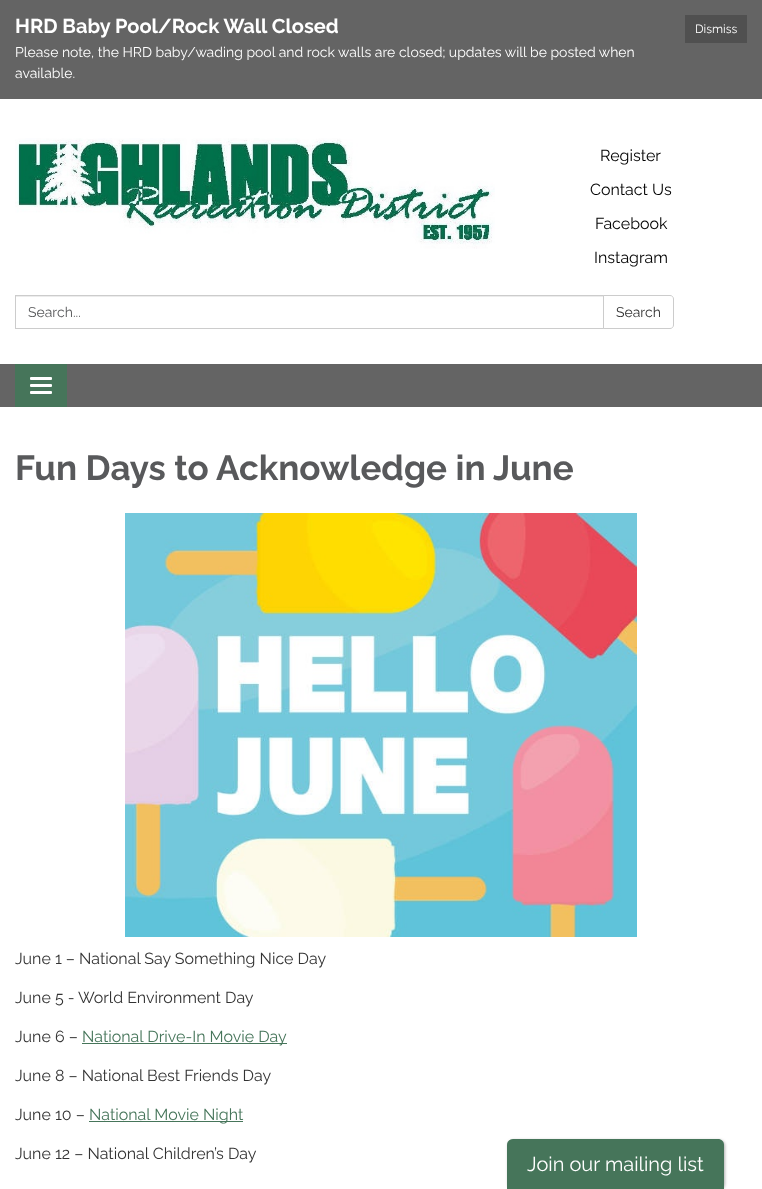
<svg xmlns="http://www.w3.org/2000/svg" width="762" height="1189">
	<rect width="100%" height="100%" fill="#646464" />
	<text x="15" y="33" font-family="Raleway" font-size="20" font-weight="700" fill="#FFFFFF">HRD Baby Pool/Rock Wall Closed</text>
	<rect x="685" y="15" width="62" height="28" fill="#505050" />
	<text x="695" y="33" font-family="Raleway" font-size="12" fill="#FFFFFF">Dismiss</text>
	<g font-family="Raleway" font-size="14" fill="#FFFFFF">
		<text x="15" y="57">Please note, the HRD baby/wading pool and rock walls are closed; updates will be posted when</text>
		<text x="15" y="78">available.</text>
	</g>
	<rect x="0" y="99" width="762" height="265" fill="#FFFFFF" />
	<image x="15" y="138" width="480" height="111" href="assets/img1.png" />
	<g font-family="Raleway" font-size="16" fill="#000000">
		<text x="600" y="161">Register</text>
		<text x="590" y="195">Contact Us</text>
		<text x="595" y="229">Facebook</text>
		<text x="594" y="263">Instagram</text>
	</g>
	<rect x="16" y="296" width="587" height="1" fill="#ECECEC" />
	<rect x="15.5" y="295.5" width="588" height="33" fill="none" stroke="#CCCCCC" />
	<text x="28" y="317" font-family="Raleway" font-size="14" fill="#58595B">Search...</text>
	<path d="M603.5 295.5H670C672 295.5 673.5 297 673.5 299V325C673.5 327 672 328.5 670 328.5H603.5Z" fill="#FFFFFF" stroke="#CCCCCC" />
	<text x="616" y="317" font-family="Raleway" font-size="14" fill="#333333">Search</text>
	<rect x="15" y="364" width="52" height="43" fill="#46755A" />
	<rect x="30" y="377" width="22" height="3" rx="1" fill="#FFFFFF" />
	<rect x="30" y="384" width="22" height="3" rx="1" fill="#FFFFFF" />
	<rect x="30" y="391" width="22" height="3" rx="1" fill="#FFFFFF" />
	<rect x="0" y="407" width="762" height="782" fill="#FFFFFF" />
	<text x="15" y="480" font-family="Raleway" font-size="35" font-weight="700" fill="#58595B">Fun Days to Acknowledge in June</text>
	<image x="125" y="513" width="512" height="424" href="assets/img2.png" />
	<g font-family="Raleway" font-size="16" fill="#333333">
		<text x="15" y="964">June 1 – National Say Something Nice Day</text>
		<text x="15" y="1003">June 5 - World Environment Day</text>
		<text x="15" y="1042">June 6 –</text>
	</g>
	<rect x="82" y="1043" width="205" height="1" fill="#46755A" />
	<text x="82" y="1042" font-family="Raleway" font-size="16" fill="#46755A">National Drive-In Movie Day</text>
	<g font-family="Raleway" font-size="16" fill="#333333">
		<text x="15" y="1081">June 8 – National Best Friends Day</text>
		<text x="15" y="1120">June 10 –</text>
	</g>
	<rect x="89" y="1121" width="154" height="1" fill="#46755A" />
	<text x="89" y="1120" font-family="Raleway" font-size="16" fill="#46755A">National Movie Night</text>
	<text x="15" y="1159" font-family="Raleway" font-size="16" fill="#333333">June 12 – National Children’s Day</text>
	<rect x="508" y="1140" width="217" height="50" rx="6" fill="#000000" fill-opacity="0.3" filter="blur(1.5px)" />
	<path d="M513 1139H718C721.5 1139 724 1141.5 724 1145V1189H507V1145C507 1141.5 509.5 1139 513 1139Z" fill="#46755A" />
	<text x="527" y="1171" font-family="Raleway" font-size="20" fill="#FFFFFF">Join our mailing list</text>
</svg>
